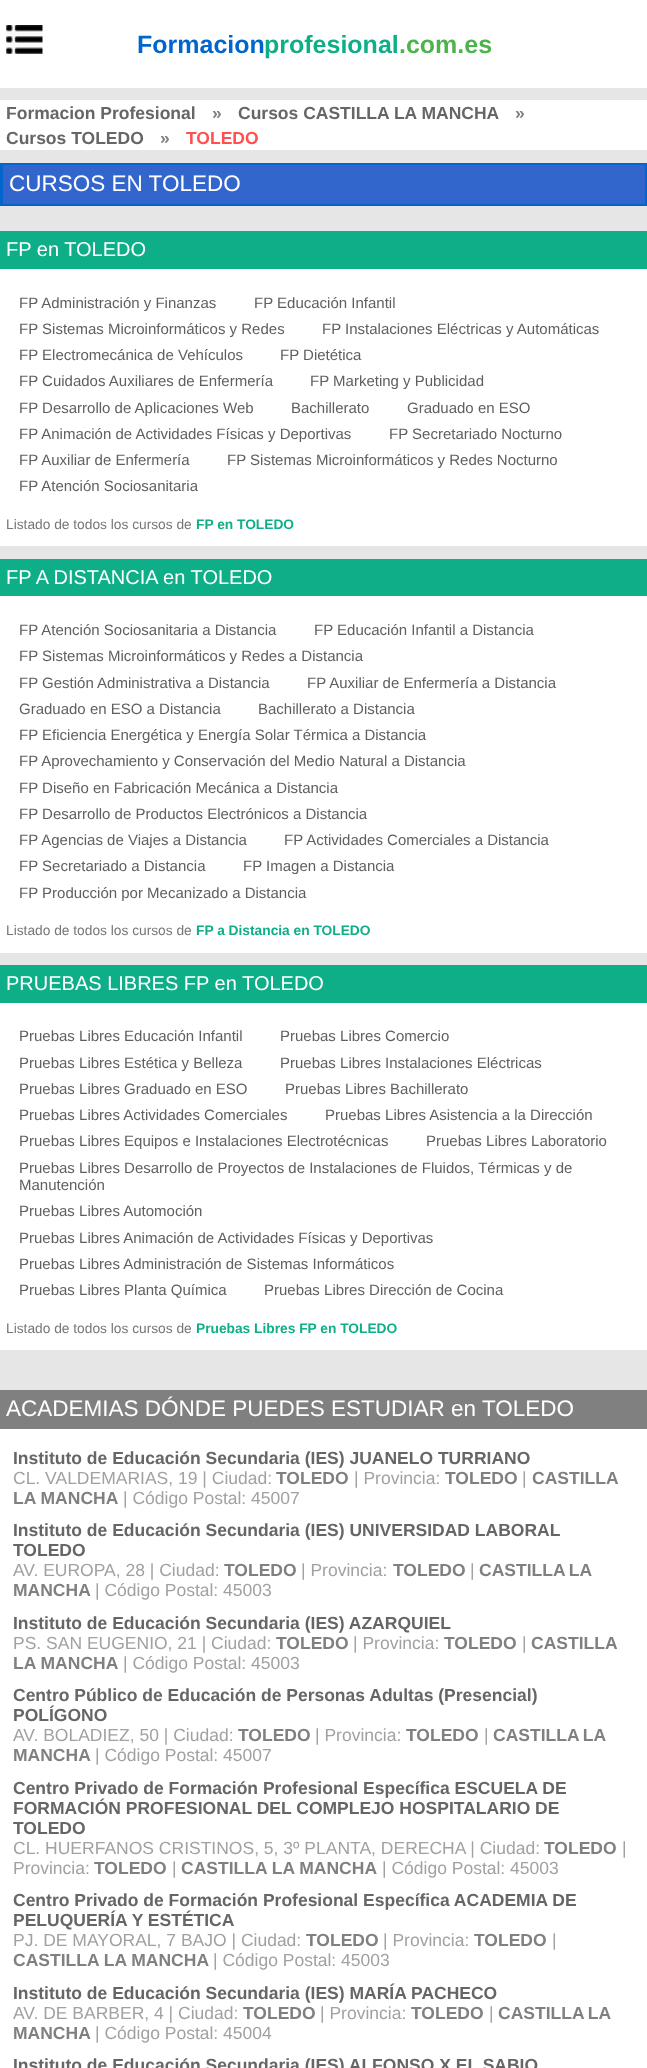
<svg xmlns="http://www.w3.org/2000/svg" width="647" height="2068">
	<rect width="100%" height="100%" fill="#E6E6E6" />
	<rect x="0" y="0" width="647" height="88" fill="#FFFFFF" />
	<image x="6" y="25" width="37" height="29" href="assets/img1.png" />
	<text x="137" y="53" font-family="Liberation Sans" font-size="25" font-weight="700" fill="#0066CC">Formacion</text>
	<text x="264" y="53" font-family="Liberation Sans" font-size="25" font-weight="700" fill="#0EAF88">profesional</text>
	<text x="399" y="53" font-family="Liberation Sans" font-size="25" font-weight="700" fill="#4DB34D">.com.es</text>
	<rect x="0" y="100" width="647" height="50" fill="#FFFFFF" />
	<text x="6" y="119" font-family="Liberation Sans" font-size="17.5" font-weight="700" fill="#666666">Formacion Profesional</text>
	<text x="212" y="119" font-family="Liberation Sans" font-size="17.5" font-weight="700" fill="#808080">»</text>
	<text x="238" y="119" font-family="Liberation Sans" font-size="17.5" font-weight="700" fill="#666666">Cursos CASTILLA LA MANCHA</text>
	<text x="515" y="119" font-family="Liberation Sans" font-size="17.5" font-weight="700" fill="#808080">»</text>
	<text x="6" y="144" font-family="Liberation Sans" font-size="17.5" font-weight="700" fill="#666666">Cursos TOLEDO</text>
	<text x="160" y="144" font-family="Liberation Sans" font-size="17.5" font-weight="700" fill="#808080">»</text>
	<text x="186" y="144" font-family="Liberation Sans" font-size="17.5" font-weight="700" fill="#FF5050">TOLEDO</text>
	<rect x="1.5" y="164.5" width="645" height="40" fill="none" stroke="#0066CC" stroke-width="3" />
	<rect x="3" y="165" width="642" height="39" fill="#3366CC" />
	<text x="9" y="191" font-family="Liberation Sans" font-size="22.5" fill="#FFFFFF">CURSOS EN TOLEDO</text>
	<rect x="0" y="269" width="647" height="277" fill="#FFFFFF" />
	<rect x="0" y="231" width="647" height="38" fill="#0EAF88" />
	<text x="6" y="256" font-family="Liberation Sans" font-size="20" fill="#FFFFFF">FP en TOLEDO</text>
	<g font-family="Liberation Sans" font-size="15" fill="#5F5F5F">
		<text x="19" y="308">FP Administración y Finanzas</text>
		<text x="254" y="308">FP Educación Infantil</text>
		<text x="19" y="334">FP Sistemas Microinformáticos y Redes</text>
		<text x="322" y="334">FP Instalaciones Eléctricas y Automáticas</text>
		<text x="19" y="360">FP Electromecánica de Vehículos</text>
		<text x="280" y="360">FP Dietética</text>
		<text x="19" y="386">FP Cuidados Auxiliares de Enfermería</text>
		<text x="310" y="386">FP Marketing y Publicidad</text>
		<text x="19" y="413">FP Desarrollo de Aplicaciones Web</text>
		<text x="291" y="413">Bachillerato</text>
		<text x="407" y="413">Graduado en ESO</text>
		<text x="19" y="439">FP Animación de Actividades Físicas y Deportivas</text>
		<text x="389" y="439">FP Secretariado Nocturno</text>
		<text x="19" y="465">FP Auxiliar de Enfermería</text>
		<text x="227" y="465">FP Sistemas Microinformáticos y Redes Nocturno</text>
		<text x="19" y="491">FP Atención Sociosanitaria</text>
	</g>
	<text x="6" y="529" font-family="Liberation Sans" font-size="13.75" fill="#767676">Listado de todos los cursos de</text>
	<text x="196" y="529" font-family="Liberation Sans" font-size="13.75" font-weight="700" fill="#0EAF88">FP en TOLEDO</text>
	<rect x="0" y="596" width="647" height="357" fill="#FFFFFF" />
	<rect x="0" y="559" width="647" height="37" fill="#0EAF88" />
	<text x="6" y="584" font-family="Liberation Sans" font-size="20" fill="#FFFFFF">FP A DISTANCIA en TOLEDO</text>
	<g font-family="Liberation Sans" font-size="15" fill="#5F5F5F">
		<text x="19" y="635">FP Atención Sociosanitaria a Distancia</text>
		<text x="314" y="635">FP Educación Infantil a Distancia</text>
		<text x="19" y="661">FP Sistemas Microinformáticos y Redes a Distancia</text>
		<text x="19" y="688">FP Gestión Administrativa a Distancia</text>
		<text x="307" y="688">FP Auxiliar de Enfermería a Distancia</text>
		<text x="19" y="714">Graduado en ESO a Distancia</text>
		<text x="258" y="714">Bachillerato a Distancia</text>
		<text x="19" y="740">FP Eficiencia Energética y Energía Solar Térmica a Distancia</text>
		<text x="19" y="766">FP Aprovechamiento y Conservación del Medio Natural a Distancia</text>
		<text x="19" y="793">FP Diseño en Fabricación Mecánica a Distancia</text>
		<text x="19" y="819">FP Desarrollo de Productos Electrónicos a Distancia</text>
		<text x="19" y="845">FP Agencias de Viajes a Distancia</text>
		<text x="284" y="845">FP Actividades Comerciales a Distancia</text>
		<text x="19" y="871">FP Secretariado a Distancia</text>
		<text x="243" y="871">FP Imagen a Distancia</text>
		<text x="19" y="898">FP Producción por Mecanizado a Distancia</text>
	</g>
	<text x="6" y="935" font-family="Liberation Sans" font-size="13.75" fill="#767676">Listado de todos los cursos de</text>
	<text x="196" y="935" font-family="Liberation Sans" font-size="13.75" font-weight="700" fill="#0EAF88">FP a Distancia en TOLEDO</text>
	<rect x="0" y="1003" width="647" height="347" fill="#FFFFFF" />
	<rect x="0" y="965" width="647" height="38" fill="#0EAF88" />
	<text x="6" y="990" font-family="Liberation Sans" font-size="20" fill="#FFFFFF">PRUEBAS LIBRES FP en TOLEDO</text>
	<g font-family="Liberation Sans" font-size="15" fill="#5F5F5F">
		<text x="19" y="1041">Pruebas Libres Educación Infantil</text>
		<text x="280" y="1041">Pruebas Libres Comercio</text>
		<text x="19" y="1068">Pruebas Libres Estética y Belleza</text>
		<text x="280" y="1068">Pruebas Libres Instalaciones Eléctricas</text>
		<text x="19" y="1094">Pruebas Libres Graduado en ESO</text>
		<text x="285" y="1094">Pruebas Libres Bachillerato</text>
		<text x="19" y="1120">Pruebas Libres Actividades Comerciales</text>
		<text x="325" y="1120">Pruebas Libres Asistencia a la Dirección</text>
		<text x="19" y="1146">Pruebas Libres Equipos e Instalaciones Electrotécnicas</text>
		<text x="426" y="1146">Pruebas Libres Laboratorio</text>
		<text x="19" y="1173">Pruebas Libres Desarrollo de Proyectos de Instalaciones de Fluidos, Térmicas y de</text>
		<text x="19" y="1190">Manutención</text>
		<text x="19" y="1216">Pruebas Libres Automoción</text>
		<text x="19" y="1243">Pruebas Libres Animación de Actividades Físicas y Deportivas</text>
		<text x="19" y="1269">Pruebas Libres Administración de Sistemas Informáticos</text>
		<text x="19" y="1295">Pruebas Libres Planta Química</text>
		<text x="264" y="1295">Pruebas Libres Dirección de Cocina</text>
	</g>
	<text x="6" y="1333" font-family="Liberation Sans" font-size="13.75" fill="#767676">Listado de todos los cursos de</text>
	<text x="196" y="1333" font-family="Liberation Sans" font-size="13.75" font-weight="700" fill="#0EAF88">Pruebas Libres FP en TOLEDO</text>
	<rect x="0" y="1429" width="647" height="639" fill="#FFFFFF" />
	<rect x="0" y="1390" width="647" height="39" fill="#808080" />
	<text x="6" y="1416" font-family="Liberation Sans" font-size="22.5" fill="#FFFFFF">ACADEMIAS DÓNDE PUEDES ESTUDIAR en TOLEDO</text>
	<text x="13" y="1464" font-family="Liberation Sans" font-size="17.5" font-weight="700" fill="#666666">Instituto de Educación Secundaria (IES) JUANELO TURRIANO</text>
	<text x="13" y="1484" font-family="Liberation Sans" font-size="17.5" fill="#A1A1A1">CL. VALDEMARIAS, 19 | Ciudad:</text>
	<text x="276" y="1484" font-family="Liberation Sans" font-size="17.5" font-weight="700" fill="#808080">TOLEDO</text>
	<text x="354" y="1484" font-family="Liberation Sans" font-size="17.5" fill="#A1A1A1">| Provincia:</text>
	<text x="445" y="1484" font-family="Liberation Sans" font-size="17.5" font-weight="700" fill="#808080">TOLEDO</text>
	<text x="522" y="1484" font-family="Liberation Sans" font-size="17.5" fill="#A1A1A1">|</text>
	<g font-family="Liberation Sans" font-size="17.5" font-weight="700" fill="#808080">
		<text x="532" y="1484">CASTILLA</text>
		<text x="13" y="1504">LA MANCHA</text>
	</g>
	<text x="123" y="1504" font-family="Liberation Sans" font-size="17.5" fill="#A1A1A1">| Código Postal: 45007</text>
	<g font-family="Liberation Sans" font-size="17.5" font-weight="700" fill="#666666">
		<text x="13" y="1536">Instituto de Educación Secundaria (IES) UNIVERSIDAD LABORAL</text>
		<text x="13" y="1556">TOLEDO</text>
	</g>
	<text x="13" y="1576" font-family="Liberation Sans" font-size="17.5" fill="#A1A1A1">AV. EUROPA, 28 | Ciudad:</text>
	<text x="224" y="1576" font-family="Liberation Sans" font-size="17.5" font-weight="700" fill="#808080">TOLEDO</text>
	<text x="301" y="1576" font-family="Liberation Sans" font-size="17.5" fill="#A1A1A1">| Provincia:</text>
	<text x="393" y="1576" font-family="Liberation Sans" font-size="17.5" font-weight="700" fill="#808080">TOLEDO</text>
	<text x="470" y="1576" font-family="Liberation Sans" font-size="17.5" fill="#A1A1A1">|</text>
	<g font-family="Liberation Sans" font-size="17.5" font-weight="700" fill="#808080">
		<text x="479" y="1576" word-spacing="-1">CASTILLA LA</text>
		<text x="13" y="1596">MANCHA</text>
	</g>
	<text x="95" y="1596" font-family="Liberation Sans" font-size="17.5" fill="#A1A1A1">| Código Postal: 45003</text>
	<text x="13" y="1629" font-family="Liberation Sans" font-size="17.5" font-weight="700" fill="#666666">Instituto de Educación Secundaria (IES) AZARQUIEL</text>
	<text x="13" y="1649" font-family="Liberation Sans" font-size="17.5" fill="#A1A1A1">PS. SAN EUGENIO, 21 | Ciudad:</text>
	<text x="276" y="1649" font-family="Liberation Sans" font-size="17.5" font-weight="700" fill="#808080">TOLEDO</text>
	<text x="353" y="1649" font-family="Liberation Sans" font-size="17.5" fill="#A1A1A1">| Provincia:</text>
	<text x="444" y="1649" font-family="Liberation Sans" font-size="17.5" font-weight="700" fill="#808080">TOLEDO</text>
	<text x="522" y="1649" font-family="Liberation Sans" font-size="17.5" fill="#A1A1A1">|</text>
	<g font-family="Liberation Sans" font-size="17.5" font-weight="700" fill="#808080">
		<text x="531" y="1649">CASTILLA</text>
		<text x="13" y="1669">LA MANCHA</text>
	</g>
	<text x="123" y="1669" font-family="Liberation Sans" font-size="17.5" fill="#A1A1A1">| Código Postal: 45003</text>
	<g font-family="Liberation Sans" font-size="17.5" font-weight="700" fill="#666666">
		<text x="13" y="1701">Centro Público de Educación de Personas Adultas (Presencial)</text>
		<text x="13" y="1721">POLÍGONO</text>
	</g>
	<text x="13" y="1741" font-family="Liberation Sans" font-size="17.5" fill="#A1A1A1">AV. BOLADIEZ, 50 | Ciudad:</text>
	<text x="238" y="1741" font-family="Liberation Sans" font-size="17.5" font-weight="700" fill="#808080">TOLEDO</text>
	<text x="315" y="1741" font-family="Liberation Sans" font-size="17.5" fill="#A1A1A1">| Provincia:</text>
	<text x="406" y="1741" font-family="Liberation Sans" font-size="17.5" font-weight="700" fill="#808080">TOLEDO</text>
	<text x="484" y="1741" font-family="Liberation Sans" font-size="17.5" fill="#A1A1A1">|</text>
	<g font-family="Liberation Sans" font-size="17.5" font-weight="700" fill="#808080">
		<text x="493" y="1741" word-spacing="-1">CASTILLA LA</text>
		<text x="13" y="1761">MANCHA</text>
	</g>
	<text x="95" y="1761" font-family="Liberation Sans" font-size="17.5" fill="#A1A1A1">| Código Postal: 45007</text>
	<g font-family="Liberation Sans" font-size="17.5" font-weight="700" fill="#666666">
		<text x="13" y="1794">Centro Privado de Formación Profesional Específica ESCUELA DE</text>
		<text x="13" y="1814">FORMACIÓN PROFESIONAL DEL COMPLEJO HOSPITALARIO DE</text>
		<text x="13" y="1834">TOLEDO</text>
	</g>
	<text x="13" y="1854" font-family="Liberation Sans" font-size="17.5" fill="#A1A1A1">CL. HUERFANOS CRISTINOS, 5, 3º PLANTA, DERECHA | Ciudad:</text>
	<text x="544" y="1854" font-family="Liberation Sans" font-size="17.5" font-weight="700" fill="#808080">TOLEDO</text>
	<g font-family="Liberation Sans" font-size="17.5" fill="#A1A1A1">
		<text x="622" y="1854">|</text>
		<text x="13" y="1874">Provincia:</text>
	</g>
	<text x="94" y="1874" font-family="Liberation Sans" font-size="17.5" font-weight="700" fill="#808080">TOLEDO</text>
	<text x="172" y="1874" font-family="Liberation Sans" font-size="17.5" fill="#A1A1A1">|</text>
	<text x="181" y="1874" font-family="Liberation Sans" font-size="17.5" font-weight="700" fill="#808080">CASTILLA LA MANCHA</text>
	<text x="382" y="1874" font-family="Liberation Sans" font-size="17.5" fill="#A1A1A1">| Código Postal: 45003</text>
	<g font-family="Liberation Sans" font-size="17.5" font-weight="700" fill="#666666">
		<text x="13" y="1906">Centro Privado de Formación Profesional Específica ACADEMIA DE</text>
		<text x="13" y="1926">PELUQUERÍA Y ESTÉTICA</text>
	</g>
	<text x="13" y="1946" font-family="Liberation Sans" font-size="17.5" fill="#A1A1A1">PJ. DE MAYORAL, 7 BAJO | Ciudad:</text>
	<text x="306" y="1946" font-family="Liberation Sans" font-size="17.5" font-weight="700" fill="#808080">TOLEDO</text>
	<text x="383" y="1946" font-family="Liberation Sans" font-size="17.5" fill="#A1A1A1">| Provincia:</text>
	<text x="474" y="1946" font-family="Liberation Sans" font-size="17.5" font-weight="700" fill="#808080">TOLEDO</text>
	<text x="552" y="1946" font-family="Liberation Sans" font-size="17.5" fill="#A1A1A1">|</text>
	<text x="13" y="1966" font-family="Liberation Sans" font-size="17.5" font-weight="700" fill="#808080">CASTILLA LA MANCHA</text>
	<text x="213" y="1966" font-family="Liberation Sans" font-size="17.5" fill="#A1A1A1">| Código Postal: 45003</text>
	<text x="13" y="1999" font-family="Liberation Sans" font-size="17.5" font-weight="700" fill="#666666">Instituto de Educación Secundaria (IES) MARÍA PACHECO</text>
	<text x="13" y="2019" font-family="Liberation Sans" font-size="17.5" fill="#A1A1A1">AV. DE BARBER, 4 | Ciudad:</text>
	<text x="243" y="2019" font-family="Liberation Sans" font-size="17.5" font-weight="700" fill="#808080">TOLEDO</text>
	<text x="320" y="2019" font-family="Liberation Sans" font-size="17.5" fill="#A1A1A1">| Provincia:</text>
	<text x="411" y="2019" font-family="Liberation Sans" font-size="17.5" font-weight="700" fill="#808080">TOLEDO</text>
	<text x="489" y="2019" font-family="Liberation Sans" font-size="17.5" fill="#A1A1A1">|</text>
	<g font-family="Liberation Sans" font-size="17.5" font-weight="700" fill="#808080">
		<text x="498" y="2019" word-spacing="-1">CASTILLA LA</text>
		<text x="13" y="2039">MANCHA</text>
	</g>
	<text x="95" y="2039" font-family="Liberation Sans" font-size="17.5" fill="#A1A1A1">| Código Postal: 45004</text>
	<text x="13" y="2071" font-family="Liberation Sans" font-size="17.5" font-weight="700" fill="#666666">Instituto de Educación Secundaria (IES) ALFONSO X EL SABIO</text>
</svg>
